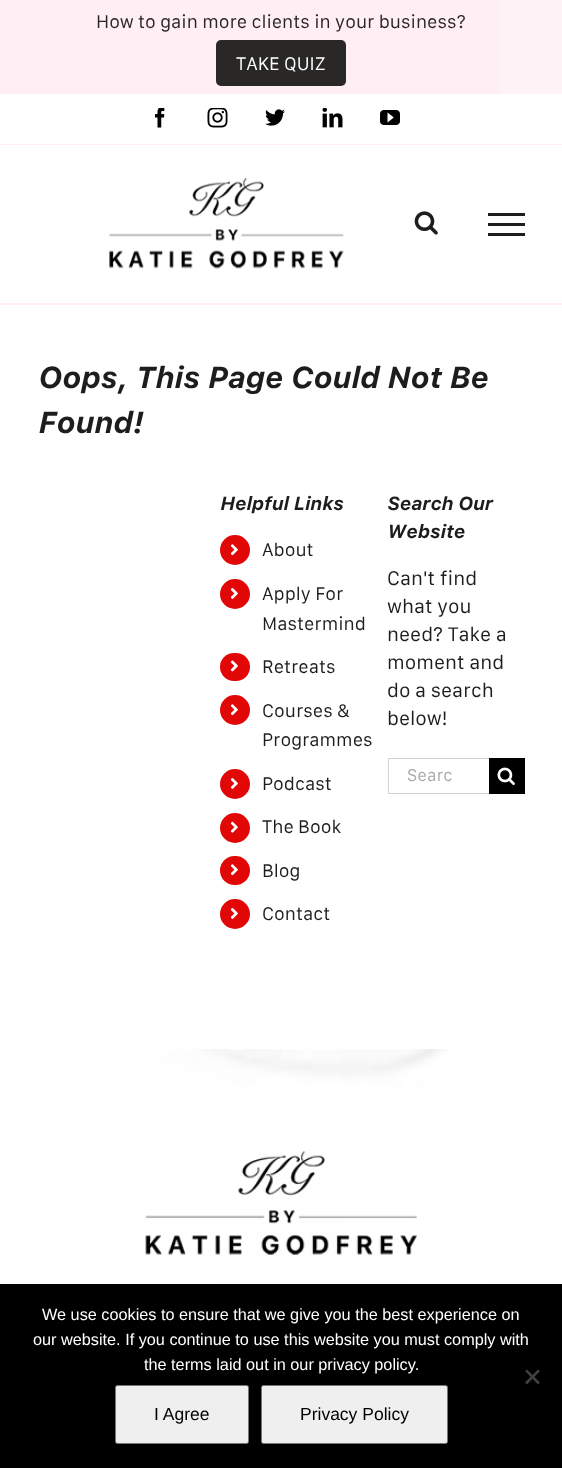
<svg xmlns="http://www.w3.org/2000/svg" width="562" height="1468">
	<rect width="100%" height="100%" fill="#FFFFFF" />
	<image x="0" y="1049" width="562" height="235" href="assets/img1.png" />
	<rect x="0" y="0" width="500" height="94" fill="#FFEEF4" />
	<text x="96" y="28" font-family="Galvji" font-size="17.5" fill="#292626">How to gain more clients in your business?</text>
	<rect x="500" y="0" width="62" height="94" fill="#FFF3F7" />
	<rect x="216" y="40" width="130" height="46" rx="5" fill="#292827" />
	<text x="236" y="70" font-family="Galvji" font-size="17.5" fill="#FFFFFF">TAKE QUIZ</text>
	<rect x="0" y="144" width="562" height="1" fill="#FFEEF4" />
	<image x="155" y="108" width="10" height="20" href="assets/img2.png" />
	<image x="207" y="108" width="21" height="20" href="assets/img3.png" />
	<image x="265" y="109" width="20" height="17" href="assets/img4.png" />
	<image x="322" y="108" width="21" height="20" href="assets/img5.png" />
	<image x="380" y="110" width="20" height="15" href="assets/img6.png" />
	<rect x="0" y="303" width="562" height="2" fill="#FFEEF4" />
	<image x="109" y="178" width="235" height="91" href="assets/img7.png" />
	<image x="414" y="211" width="24" height="24" href="assets/img8.png" />
	<rect x="488" y="213" width="37" height="3" fill="#1D1D1D" />
	<rect x="488" y="223" width="37" height="3" fill="#1D1D1D" />
	<rect x="488" y="233" width="37" height="3" fill="#1D1D1D" />
	<g font-family="Galvji" font-size="30" font-weight="700" font-style="italic" fill="#1D1D1D">
		<text x="38" y="388">Oops, This Page Could Not Be</text>
		<text x="38" y="433">Found!</text>
	</g>
	<text x="220" y="510" font-family="Galvji" font-size="18.75" font-weight="700" font-style="italic" fill="#1D1D1D">Helpful Links</text>
	<circle cx="235" cy="550" r="15" fill="#E10707" />
	<image x="230" y="544" width="8" height="12" href="assets/img9.png" />
	<text x="262" y="556" font-family="Galvji" font-size="17.5" fill="#1D1D1D">About</text>
	<circle cx="235" cy="594" r="15" fill="#E10707" />
	<image x="230" y="588" width="8" height="11" href="assets/img10.png" />
	<g font-family="Galvji" font-size="17.5" fill="#1D1D1D">
		<text x="262" y="600">Apply For</text>
		<text x="262" y="630">Mastermind</text>
	</g>
	<rect x="220" y="653" width="30" height="28" rx="14" fill="#E10707" />
	<image x="230" y="660" width="8" height="12" href="assets/img11.png" />
	<text x="262" y="673" font-family="Galvji" font-size="17.5" fill="#1D1D1D">Retreats</text>
	<circle cx="235" cy="710" r="15" fill="#E10707" />
	<image x="230" y="704" width="8" height="12" href="assets/img9.png" />
	<g font-family="Galvji" font-size="17.5" fill="#1D1D1D">
		<text x="262" y="717">Courses &amp;</text>
		<text x="262" y="746">Programmes</text>
	</g>
	<circle cx="235" cy="784" r="15" fill="#E10707" />
	<image x="230" y="778" width="8" height="11" href="assets/img10.png" />
	<text x="262" y="790" font-family="Galvji" font-size="17.5" fill="#1D1D1D">Podcast</text>
	<circle cx="235" cy="828" r="15" fill="#E10707" />
	<image x="230" y="821" width="8" height="12" href="assets/img12.png" />
	<text x="262" y="833" font-family="Galvji" font-size="17.5" fill="#1D1D1D">The Book</text>
	<rect x="220" y="856" width="30" height="29" rx="14.5" fill="#E10707" />
	<image x="230" y="864" width="8" height="12" href="assets/img9.png" />
	<text x="262" y="877" font-family="Galvji" font-size="17.5" fill="#1D1D1D">Blog</text>
	<circle cx="235" cy="914" r="15" fill="#E10707" />
	<image x="230" y="908" width="8" height="11" href="assets/img10.png" />
	<text x="262" y="920" font-family="Galvji" font-size="17.5" fill="#1D1D1D">Contact</text>
	<g font-family="Galvji" font-size="18.75" font-weight="700" font-style="italic" fill="#1D1D1D">
		<text x="387" y="510">Search Our</text>
		<text x="387" y="538">Website</text>
	</g>
	<g font-family="Galvji" font-size="18.75" fill="#1D1D1D">
		<text x="387" y="585">Can't find</text>
		<text x="387" y="613">what you</text>
		<text x="387" y="641">need? Take a</text>
		<text x="387" y="669">moment and</text>
		<text x="387" y="697">do a search</text>
		<text x="387" y="725">below!</text>
	</g>
	<rect x="388" y="758" width="101" height="1" fill="#D2D2D2" />
	<rect x="388" y="793" width="101" height="1" fill="#D2D2D2" />
	<rect x="388" y="758" width="1" height="36" fill="#D2D2D2" />
	<text x="407" y="781" font-family="Galvji" font-size="16.25" fill="#AAA9A9">Searc</text>
	<rect x="489" y="758" width="36" height="36" fill="#000000" />
	<image x="497" y="767" width="18" height="18" href="assets/img13.png" />
	<image x="145" y="1151" width="272" height="104" href="assets/img14.png" />
	<rect x="0" y="1284" width="562" height="184" fill="#000000" />
	<g font-family="Liberation Sans" font-size="16.25" fill="#FFFFFF">
		<text x="42" y="1320">We use cookies to ensure that we give you the best experience on</text>
		<text x="33" y="1345">our website. If you continue to use this website you must comply with</text>
		<text x="144" y="1370">the terms laid out in our privacy policy.</text>
	</g>
	<path d="M538 1369.5L540 1371L527 1384.5L525 1382.5Z" fill="#404040" />
	<path d="M525 1371L527 1369.5L540 1382.5L538 1384.5Z" fill="#404040" />
	<rect x="115.5" y="1385.5" width="133" height="58" rx="2" fill="#EFEFEF" stroke="#767676" />
	<text x="154" y="1420" font-family="Liberation Sans" font-size="17.5" fill="#000000">I Agree</text>
	<rect x="261.5" y="1385.5" width="186" height="58" rx="2" fill="#EFEFEF" stroke="#767676" />
	<text x="300" y="1420" font-family="Liberation Sans" font-size="17.5" fill="#000000">Privacy Policy</text>
</svg>
